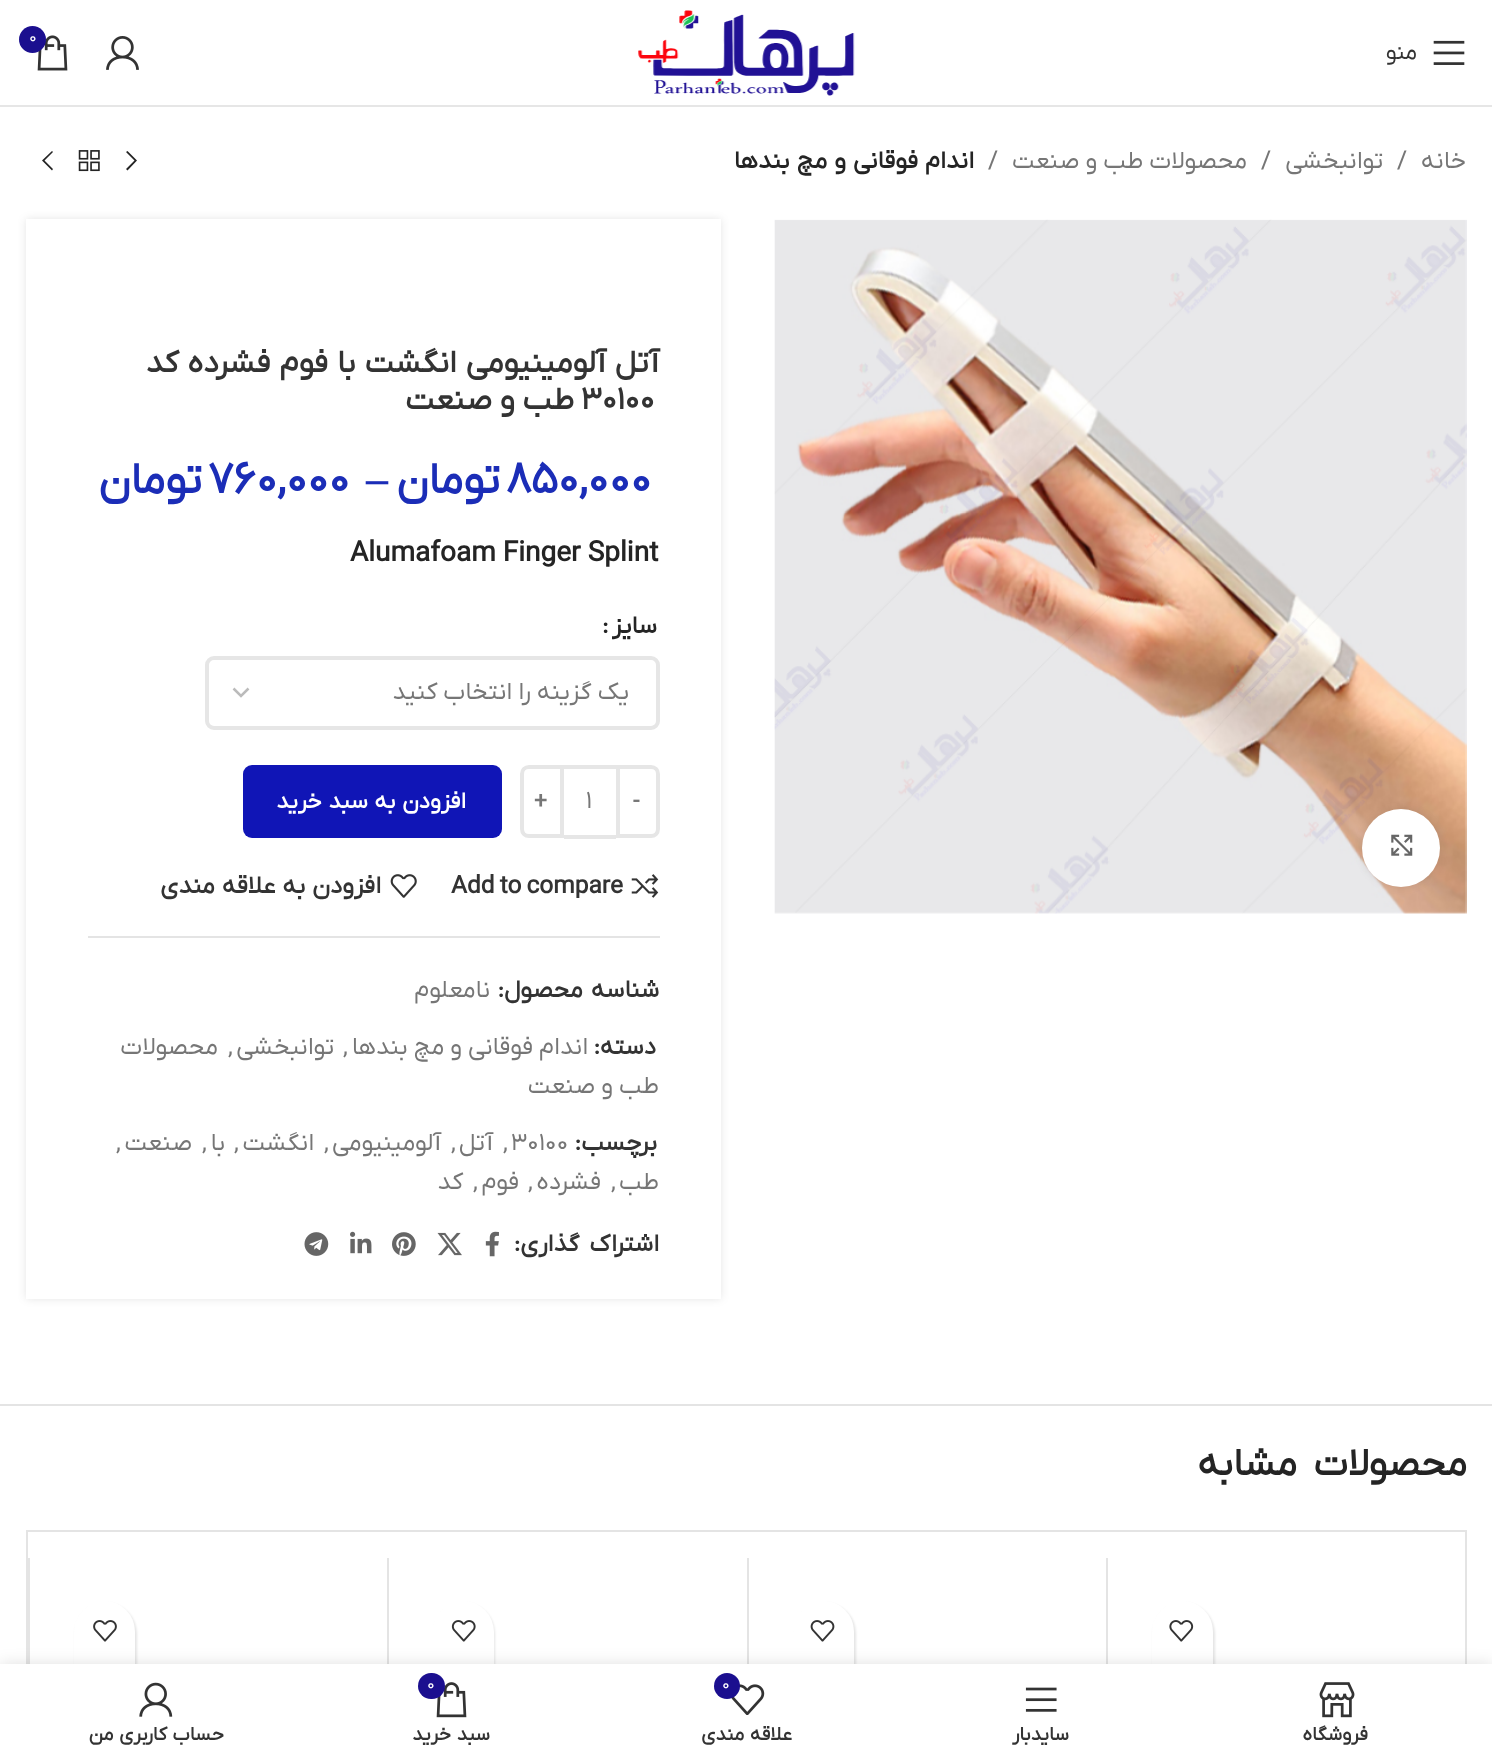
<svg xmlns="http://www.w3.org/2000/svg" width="1492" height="1760">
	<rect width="100%" height="100%" fill="#FFFFFF" />
	<rect x="0" y="105" width="1492" height="2" fill="#E6E6E6" />
	<image x="638" y="10" width="217" height="86" href="assets/img1.png" />
	<image x="106" y="36" width="33" height="34" href="assets/img2.png" />
	<image x="37" y="35" width="31" height="36" href="assets/img3.png" />
	<circle cx="32.5" cy="39.5" r="13.5" fill="#1B0F8F" />
	<text x="29" y="42" font-family="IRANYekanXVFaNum" font-size="16" fill="#FFFFFF">0</text>
	<image x="1433" y="40" width="32" height="25" href="assets/img4.png" />
	<text x="1417" y="59" font-family="IRANYekanXVFaNum" font-size="22.75" direction="rtl" fill="#333333">منو</text>
	<text x="1466" y="168" font-family="IRANYekanXVFaNum" font-size="24.5" direction="rtl" fill="#767676">خانه</text>
	<text x="1397" y="168" font-family="IRANYekanXVFaNum" font-size="24.5" fill="#767676">/</text>
	<text x="1383" y="168" font-family="IRANYekanXVFaNum" font-size="24.5" direction="rtl" fill="#767676">توانبخشی</text>
	<text x="1261" y="168" font-family="IRANYekanXVFaNum" font-size="24.5" fill="#767676">/</text>
	<text x="1247" y="168" font-family="IRANYekanXVFaNum" font-size="24.5" direction="rtl" fill="#767676">محصولات طب و صنعت</text>
	<text x="988" y="168" font-family="IRANYekanXVFaNum" font-size="24.5" fill="#767676">/</text>
	<text x="974" y="168" word-spacing="1" font-family="IRANYekanXVFaNum" font-size="24.5" font-weight="700" direction="rtl" fill="#242424">اندام فوقانی و مچ بندها</text>
	<path d="M126 152L134.5 160.5L126 169L127.5 170.5L137 160.5L127.5 151Z" fill="#242424" />
	<image x="78" y="150" width="22" height="22" href="assets/img5.png" />
	<path d="M53 152L52 151L42 160.5L52 170.5L53 169L44.5 160.5Z" fill="#242424" />
	<image x="774" y="219" width="693" height="695" href="assets/img6.png" />
	<rect x="1362" y="809" width="78" height="78" rx="39" fill="#000000" fill-opacity="0.08" filter="blur(4.5px)" />
	<circle cx="1401" cy="848" r="39" fill="#FFFFFF" />
	<image x="1391" y="834" width="22" height="22" href="assets/img7.png" />
	<rect x="26" y="219" width="695" height="1080" fill="#000000" fill-opacity="0.1" filter="blur(4.5px)" />
	<rect x="26" y="219" width="695" height="1080" fill="#FFFFFF" />
	<text x="659" y="372" word-spacing="1.25" font-family="IRANYekanXVFaNum" font-size="31.5" font-weight="700" direction="rtl" fill="#333333">آتل آلومینیومی انگشت با فوم فشرده کد</text>
	<text x="581" y="409" font-family="IRANYekanXVFaNum" font-size="31.5" font-weight="700" fill="#333333">30100</text>
	<text x="574" y="409" font-family="IRANYekanXVFaNum" font-size="31.5" font-weight="700" direction="rtl" fill="#333333">طب و صنعت</text>
	<text x="506" y="493" font-family="IRANYekanXVFaNum" font-size="44" font-weight="700" fill="#1B2DB7">850,000</text>
	<text x="500" y="493" font-family="IRANYekanXVFaNum" font-size="44" font-weight="700" direction="rtl" fill="#1B2DB7">تومان</text>
	<text x="366" y="493" font-family="Liberation Serif" font-size="44" font-weight="700" fill="#1B2DB7">–</text>
	<text x="208" y="493" font-family="IRANYekanXVFaNum" font-size="44" font-weight="700" fill="#1B2DB7">760,000</text>
	<text x="202" y="493" font-family="IRANYekanXVFaNum" font-size="44" font-weight="700" direction="rtl" fill="#1B2DB7">تومان</text>
	<text x="350" y="561" font-family="IRANYekanXVFaNum" font-size="28" font-weight="700" fill="#242424">Alumafoam Finger Splint</text>
	<text x="657" y="633" font-family="IRANYekanXVFaNum" font-size="24.5" font-weight="700" direction="rtl" fill="#242424">سایز</text>
	<text x="602" y="633" font-family="IRANYekanXVFaNum" font-size="24.5" font-weight="700" fill="#242424">:</text>
	<path d="M233.5 688.5L241 696L248.5 688.5" fill="none" stroke="#BBBBBB" stroke-width="2.5" />
	<rect x="207" y="658" width="451" height="70" rx="7" fill="none" stroke="#E6E6E6" stroke-width="4" />
	<text x="629" y="699" font-family="IRANYekanXVFaNum" font-size="24.5" direction="rtl" fill="#767676">یک گزینه را انتخاب کنید</text>
	<path d="M618 767H651C655 767 658 770 658 774V829C658 833 655 836 651 836H618Z" fill="none" stroke="#E6E6E6" stroke-width="4" />
	<text x="633" y="808" font-family="IRANYekanXVFaNum" font-size="22.75" font-weight="700" fill="#767676">-</text>
	<rect x="564" y="765" width="52" height="4" fill="#E6E6E6" />
	<rect x="564" y="835" width="52" height="4" fill="#E6E6E6" />
	<text x="586" y="808" font-family="IRANYekanXVFaNum" font-size="24.5" fill="#767676">1</text>
	<path d="M529 767H562V836H529C525 836 522 833 522 829V774C522 770 525 767 529 767Z" fill="none" stroke="#E6E6E6" stroke-width="4" />
	<text x="534" y="808" font-family="IRANYekanXVFaNum" font-size="22.75" font-weight="700" fill="#767676">+</text>
	<rect x="243" y="765" width="259" height="73" rx="9" fill="#1015B6" />
	<text x="466" y="808" word-spacing="1" font-family="IRANYekanXVFaNum" font-size="22.75" font-weight="700" direction="rtl" fill="#FFFFFF">افزودن به سبد خرید</text>
	<image x="631" y="874" width="28" height="24" href="assets/img8.png" />
	<text x="451" y="893" word-spacing="-1" font-family="IRANYekanXVFaNum" font-size="24.5" font-weight="700" fill="#333333">Add to compare</text>
	<image x="390" y="874" width="27" height="24" href="assets/img9.png" />
	<text x="381" y="893" word-spacing="1" font-family="IRANYekanXVFaNum" font-size="24.5" font-weight="700" direction="rtl" fill="#333333">افزودن به علاقه مندی</text>
	<rect x="88" y="936" width="572" height="2" fill="#E4E4E4" />
	<text x="659" y="997" word-spacing="2" font-family="IRANYekanXVFaNum" font-size="24.5" font-weight="700" direction="rtl" fill="#333333">شناسه محصول:</text>
	<text x="490" y="997" font-family="IRANYekanXVFaNum" font-size="24.5" direction="rtl" fill="#767676">نامعلوم</text>
	<text x="656" y="1054" font-family="IRANYekanXVFaNum" font-size="24.5" font-weight="700" direction="rtl" fill="#333333">دسته:</text>
	<text x="588" y="1054" font-family="IRANYekanXVFaNum" font-size="24.5" direction="rtl" fill="#767676">اندام فوقانی و مچ بندها</text>
	<text x="343" y="1054" font-family="IRANYekanXVFaNum" font-size="24.5" fill="#767676">,</text>
	<text x="334" y="1054" font-family="IRANYekanXVFaNum" font-size="24.5" direction="rtl" fill="#767676">توانبخشی</text>
	<text x="228" y="1054" font-family="IRANYekanXVFaNum" font-size="24.5" fill="#767676">,</text>
	<g font-family="IRANYekanXVFaNum" font-size="24.5" direction="rtl" fill="#767676">
		<text x="218" y="1054">محصولات</text>
		<text x="659" y="1093">طب و صنعت</text>
	</g>
	<text x="657" y="1150" font-family="IRANYekanXVFaNum" font-size="24.5" font-weight="700" direction="rtl" fill="#333333">برچسب:</text>
	<g font-family="IRANYekanXVFaNum" font-size="24.5" fill="#767676">
		<text x="511" y="1150">30100</text>
		<text x="503" y="1150">,</text>
	</g>
	<text x="493" y="1150" font-family="IRANYekanXVFaNum" font-size="24.5" direction="rtl" fill="#767676">آتل</text>
	<text x="451" y="1150" font-family="IRANYekanXVFaNum" font-size="24.5" fill="#767676">,</text>
	<text x="441" y="1150" font-family="IRANYekanXVFaNum" font-size="24.5" direction="rtl" fill="#767676">آلومینیومی</text>
	<text x="324" y="1150" font-family="IRANYekanXVFaNum" font-size="24.5" fill="#767676">,</text>
	<text x="314" y="1150" font-family="IRANYekanXVFaNum" font-size="24.5" direction="rtl" fill="#767676">انگشت</text>
	<text x="234" y="1150" font-family="IRANYekanXVFaNum" font-size="24.5" fill="#767676">,</text>
	<text x="225" y="1150" font-family="IRANYekanXVFaNum" font-size="24.5" direction="rtl" fill="#767676">با</text>
	<text x="202" y="1150" font-family="IRANYekanXVFaNum" font-size="24.5" fill="#767676">,</text>
	<text x="192" y="1150" font-family="IRANYekanXVFaNum" font-size="24.5" direction="rtl" fill="#767676">صنعت</text>
	<text x="116" y="1150" font-family="IRANYekanXVFaNum" font-size="24.5" fill="#767676">,</text>
	<text x="659" y="1189" font-family="IRANYekanXVFaNum" font-size="24.5" direction="rtl" fill="#767676">طب</text>
	<text x="611" y="1189" font-family="IRANYekanXVFaNum" font-size="24.5" fill="#767676">,</text>
	<text x="601" y="1189" font-family="IRANYekanXVFaNum" font-size="24.5" direction="rtl" fill="#767676">فشرده</text>
	<text x="528" y="1189" font-family="IRANYekanXVFaNum" font-size="24.5" fill="#767676">,</text>
	<text x="519" y="1189" font-family="IRANYekanXVFaNum" font-size="24.5" direction="rtl" fill="#767676">فوم</text>
	<text x="473" y="1189" font-family="IRANYekanXVFaNum" font-size="24.5" fill="#767676">,</text>
	<text x="463" y="1189" font-family="IRANYekanXVFaNum" font-size="24.5" direction="rtl" fill="#767676">کد</text>
	<text x="659" y="1251" word-spacing="4" font-family="IRANYekanXVFaNum" font-size="24.5" font-weight="700" direction="rtl" fill="#333333">اشتراک گذاری:</text>
	<image x="485" y="1231" width="14" height="26" href="assets/img10.png" />
	<image x="437" y="1232" width="25" height="24" href="assets/img11.png" />
	<image x="392" y="1232" width="24" height="24" href="assets/img12.png" />
	<image x="350" y="1231" width="22" height="23" href="assets/img13.png" />
	<image x="304" y="1232" width="25" height="24" href="assets/img14.png" />
	<rect x="0" y="1404" width="1492" height="2" fill="#E4E4E4" />
	<text x="1467" y="1475" word-spacing="7" font-family="IRANYekanXVFaNum" font-size="38.5" font-weight="700" direction="rtl" fill="#242424">محصولات مشابه</text>
	<rect x="27" y="1531" width="1439" height="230" fill="none" stroke="#E4E4E4" stroke-width="2" />
	<rect x="1106" y="1558" width="2" height="106" fill="#E4E4E4" />
	<rect x="1153" y="1603" width="62" height="123" rx="31" fill="#000000" fill-opacity="0.1" filter="blur(1px)" />
	<rect x="1152" y="1601" width="61" height="123" rx="30.5" fill="#FFFFFF" />
	<image x="1169" y="1620" width="25" height="22" href="assets/img15.png" />
	<rect x="747" y="1558" width="2" height="106" fill="#E4E4E4" />
	<rect x="795" y="1603" width="61" height="123" rx="30.5" fill="#000000" fill-opacity="0.1" filter="blur(1px)" />
	<rect x="793" y="1601" width="61" height="123" rx="30.5" fill="#FFFFFF" />
	<image x="810" y="1620" width="25" height="22" href="assets/img16.png" />
	<rect x="387" y="1558" width="2" height="106" fill="#E4E4E4" />
	<rect x="434" y="1603" width="61" height="123" rx="30.5" fill="#000000" fill-opacity="0.1" filter="blur(1px)" />
	<rect x="432" y="1601" width="62" height="123" rx="31" fill="#FFFFFF" />
	<image x="451" y="1620" width="25" height="22" href="assets/img17.png" />
	<rect x="28" y="1558" width="2" height="106" fill="#E4E4E4" />
	<rect x="75" y="1603" width="62" height="123" rx="31" fill="#000000" fill-opacity="0.1" filter="blur(1px)" />
	<rect x="74" y="1601" width="61" height="123" rx="30.5" fill="#FFFFFF" />
	<image x="93" y="1620" width="24" height="22" href="assets/img18.png" />
	<rect x="0" y="1664" width="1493" height="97" fill="#000000" fill-opacity="0.12" filter="blur(8px)" />
	<rect x="0" y="1664" width="1492" height="96" fill="#FFFFFF" />
	<image x="1319" y="1682" width="36" height="36" href="assets/img19.png" />
	<text x="1368" y="1740" font-family="IRANYekanXVFaNum" font-size="19.25" font-weight="700" direction="rtl" fill="#333333">فروشگاه</text>
	<image x="1025" y="1687" width="32" height="25" href="assets/img20.png" />
	<text x="1069" y="1740" font-family="IRANYekanXVFaNum" font-size="19.25" font-weight="700" direction="rtl" fill="#333333">سایدبار</text>
	<image x="731" y="1684" width="34" height="31" href="assets/img21.png" />
	<circle cx="727" cy="1686" r="13" fill="#1B0F8F" />
	<text x="722" y="1689" font-family="IRANYekanXVFaNum" font-size="16" fill="#FFFFFF">0</text>
	<text x="792" y="1740" word-spacing="1" font-family="IRANYekanXVFaNum" font-size="19.25" font-weight="700" direction="rtl" fill="#333333">علاقه مندی</text>
	<image x="436" y="1682" width="31" height="36" href="assets/img22.png" />
	<rect x="418" y="1673" width="27" height="26" rx="13" fill="#1B0F8F" />
	<text x="427" y="1689" font-family="IRANYekanXVFaNum" font-size="16" fill="#FFFFFF">0</text>
	<text x="490" y="1740" word-spacing="1" font-family="IRANYekanXVFaNum" font-size="19.25" font-weight="700" direction="rtl" fill="#333333">سبد خرید</text>
	<image x="139" y="1682" width="34" height="35" href="assets/img23.png" />
	<text x="224" y="1740" word-spacing="1" font-family="IRANYekanXVFaNum" font-size="19.25" font-weight="700" direction="rtl" fill="#333333">حساب کاربری من</text>
</svg>
